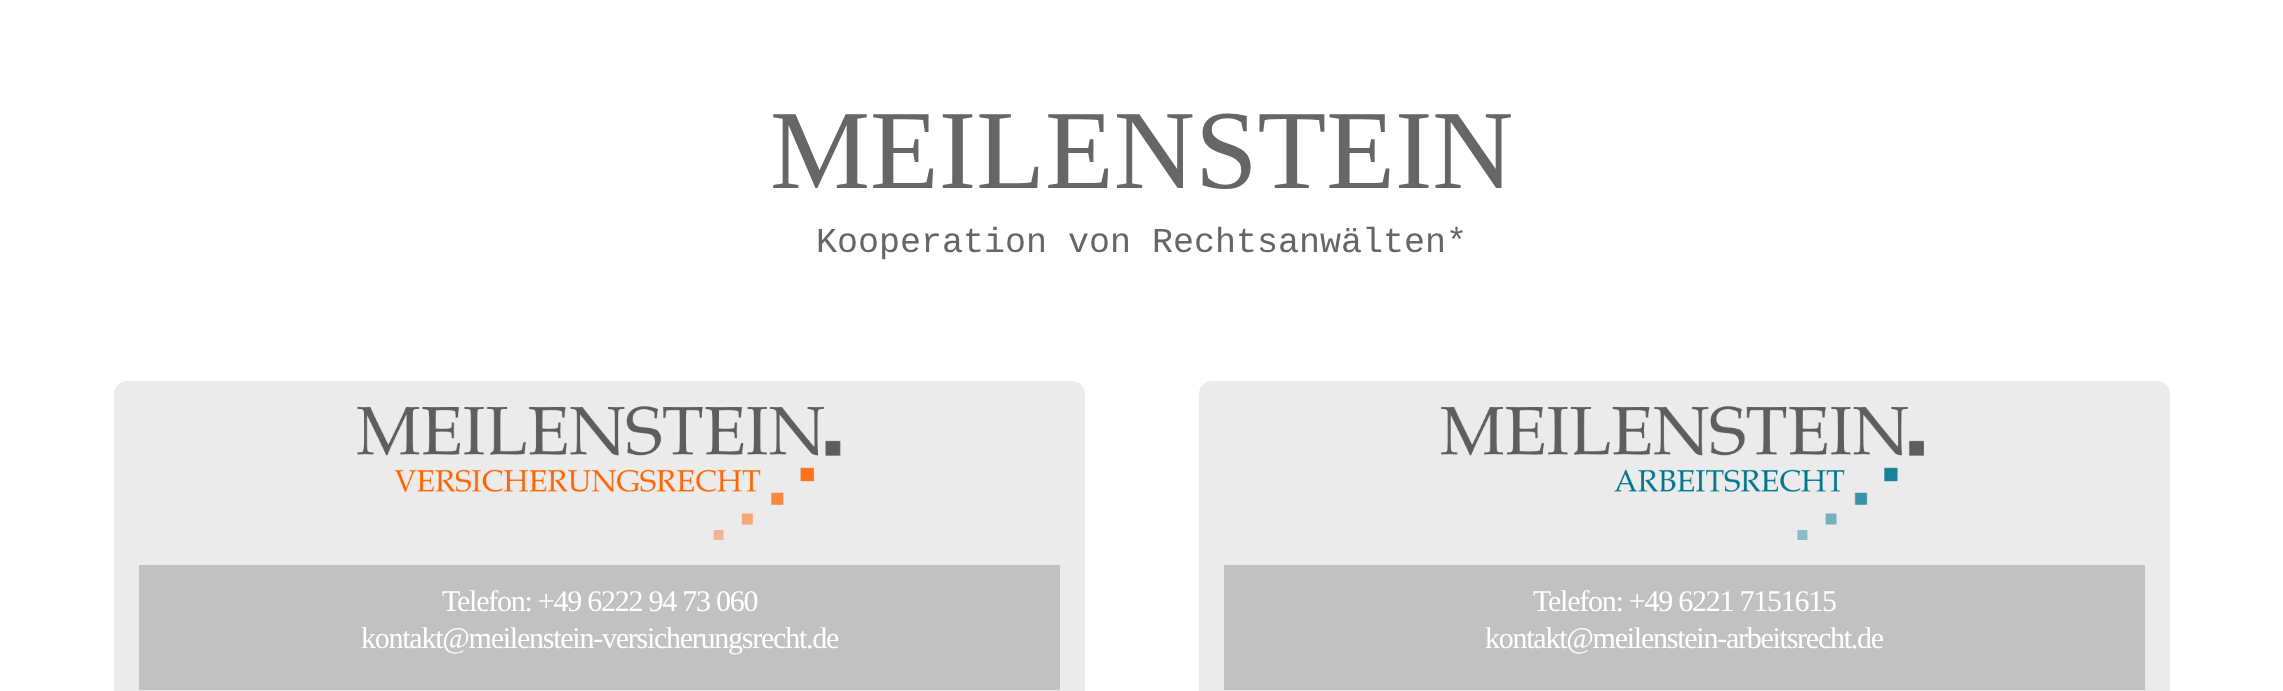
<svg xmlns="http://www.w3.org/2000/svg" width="2283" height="691">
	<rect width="100%" height="100%" fill="#FFFFFF" />
	<text x="770" y="188" font-family="Liberation Serif" font-size="112.5" fill="#666666">MEILENSTEIN</text>
	<text x="816" y="252" font-family="Liberation Mono" font-size="35" fill="#666666">Kooperation von Rechtsanwälten*</text>
	<rect x="114" y="381" width="971" height="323" rx="13" fill="#EBEBEB" />
	<image x="357" y="406" width="484" height="134" href="assets/img1.png" />
	<rect x="139" y="565" width="921" height="125" fill="#C1C1C1" />
	<g font-family="Liberation Serif" font-size="30" letter-spacing="-1.25" fill="#FFFFFF">
		<text x="442" y="611">Telefon: +49 6222 94 73 060</text>
		<text x="361" y="648">kontakt@meilenstein-versicherungsrecht.de</text>
	</g>
	<rect x="1199" y="381" width="971" height="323" rx="13" fill="#EBEBEB" />
	<image x="1441" y="406" width="483" height="134" href="assets/img2.png" />
	<rect x="1224" y="565" width="921" height="125" fill="#C1C1C1" />
	<g font-family="Liberation Serif" font-size="30" letter-spacing="-1.25" fill="#FFFFFF">
		<text x="1533" y="611">Telefon: +49 6221 7151615</text>
		<text x="1485" y="648">kontakt@meilenstein-arbeitsrecht.de</text>
	</g>
</svg>
